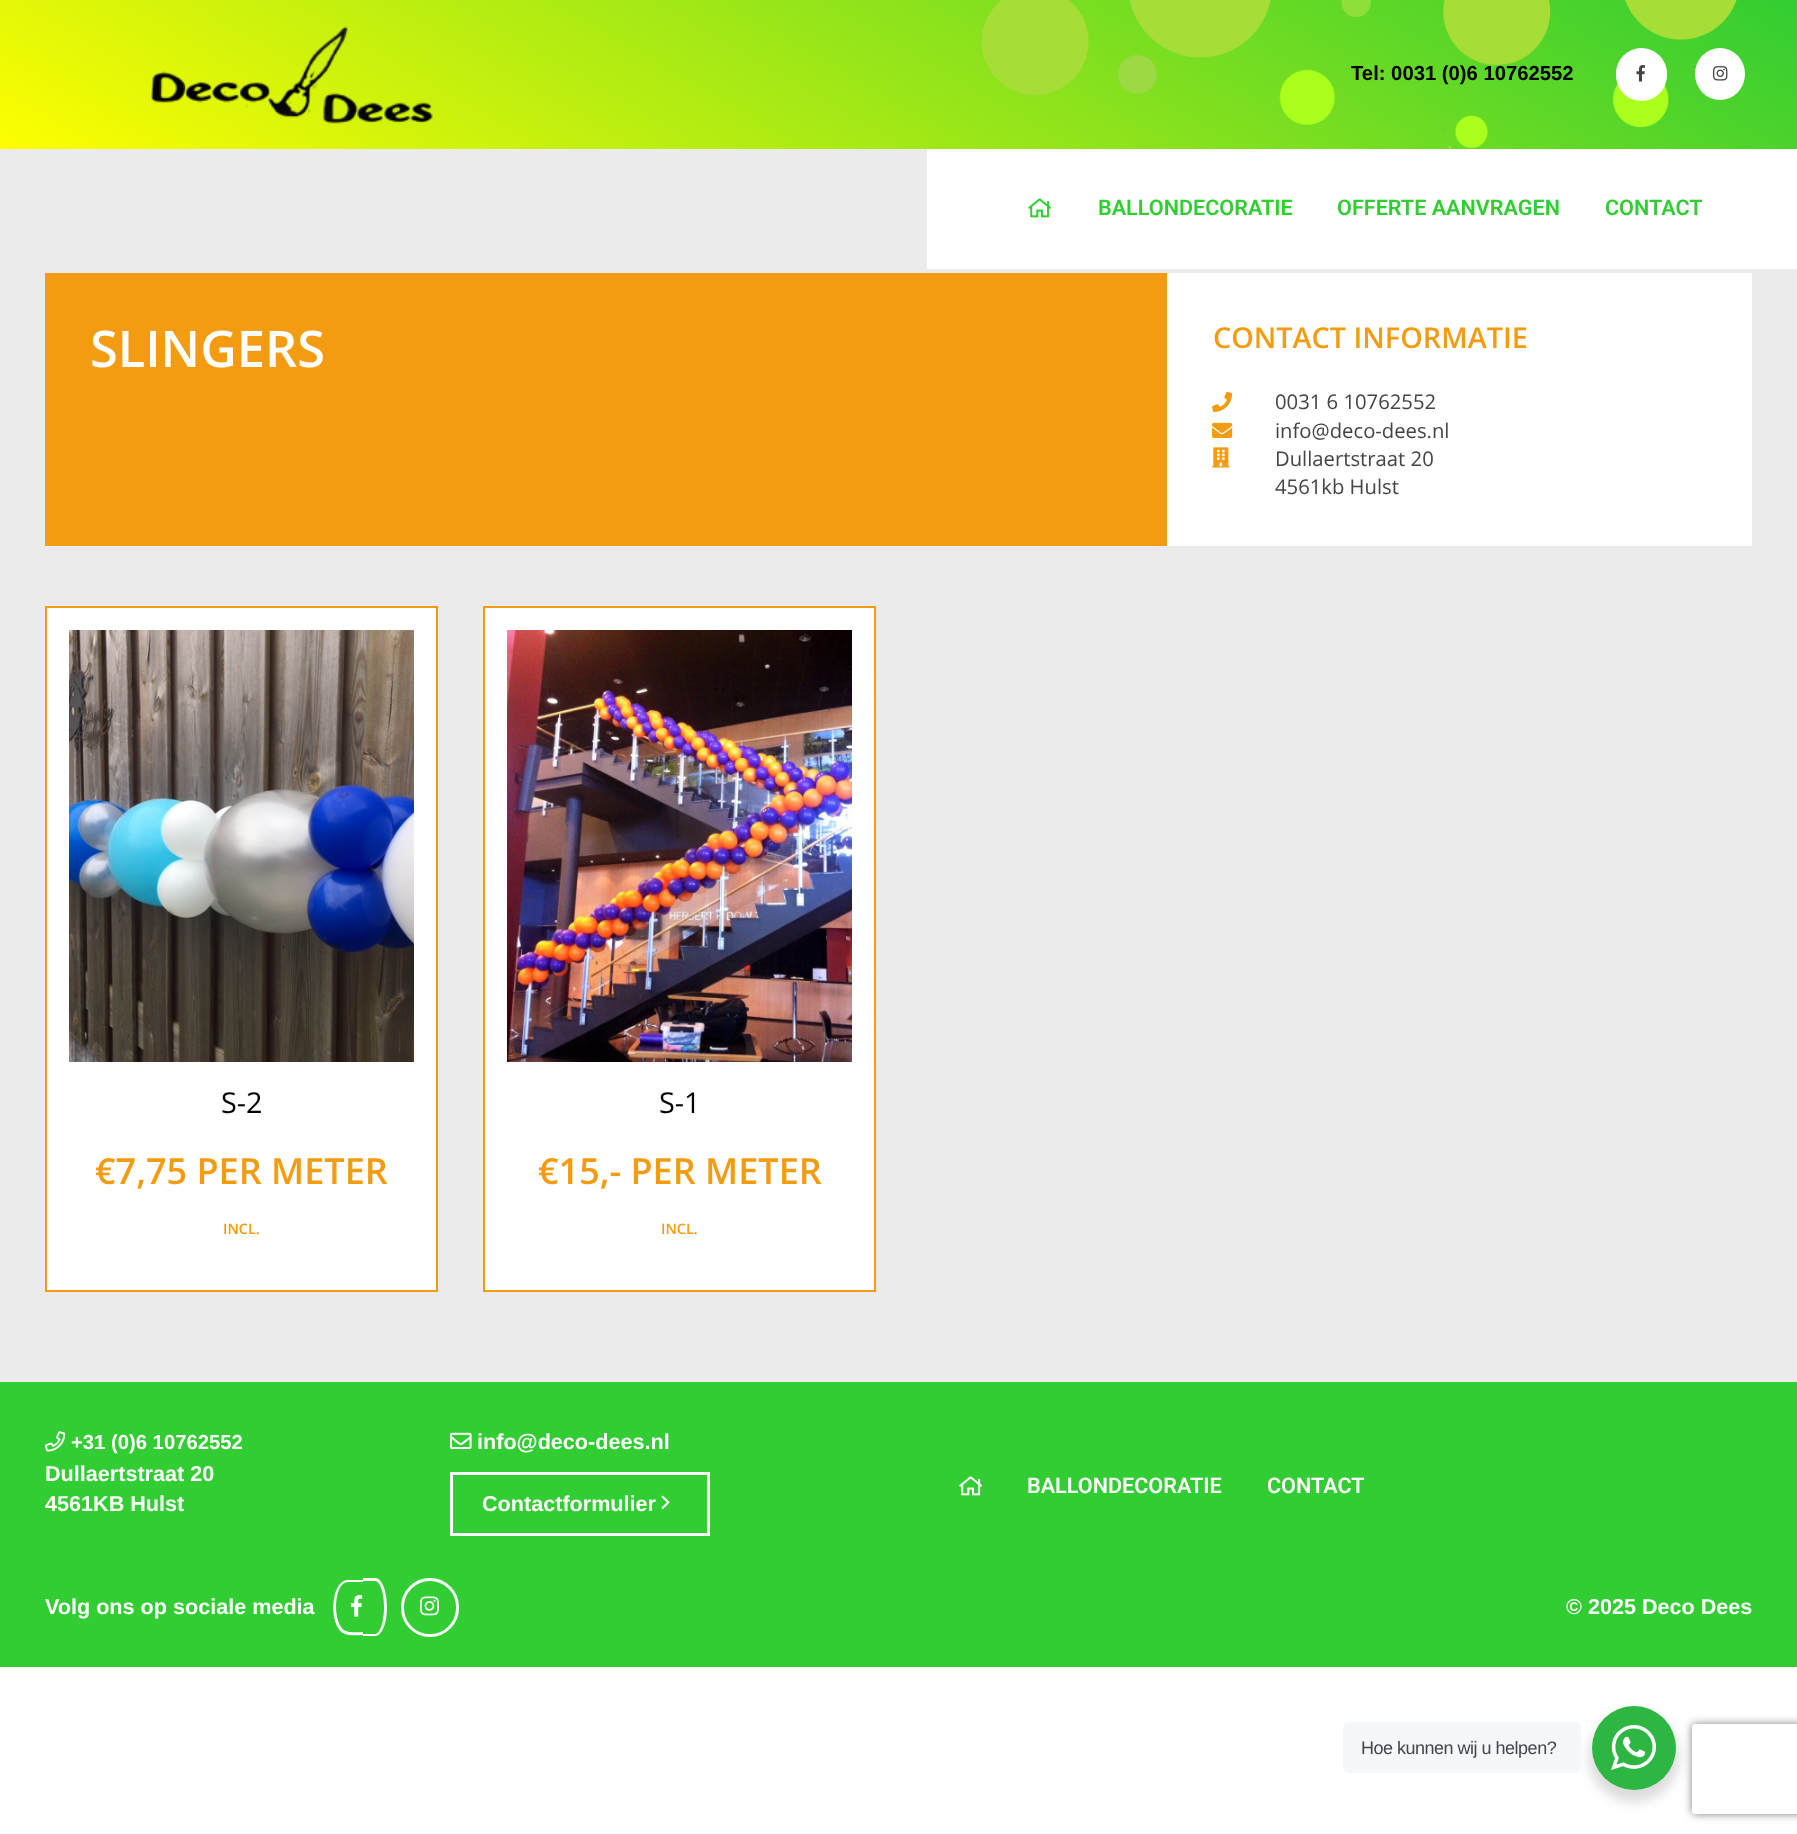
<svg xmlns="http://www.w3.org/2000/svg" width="1797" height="1834">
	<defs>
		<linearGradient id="g1" gradientUnits="userSpaceOnUse" x1="642" y1="519" x2="1155" y2="-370"><stop offset="0" stop-color="#FEFE00" /><stop offset="1" stop-color="#32CD32" /></linearGradient>
		<clipPath id="clip1"><path d="M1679 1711H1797V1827H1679ZM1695 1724H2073C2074.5 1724 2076 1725.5 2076 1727V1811C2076 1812.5 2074.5 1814 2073 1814H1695C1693.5 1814 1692 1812.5 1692 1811V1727C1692 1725.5 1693.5 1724 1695 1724Z" clip-rule="evenodd" /></clipPath>
	</defs>
	<rect width="100%" height="100%" fill="#FFFFFF" />
	<rect x="0" y="0" width="1797" height="149" fill="url(#g1)" />
	<image x="981" y="0" width="756" height="149" href="assets/img1.png" />
	<image x="151" y="26" width="282" height="98" href="assets/img2.png" />
	<text x="1351" y="80" font-family="Liberation Sans" font-size="20.25" font-weight="700" fill="#000000">Tel: 0031 (0)6 10762552</text>
	<rect x="1616" y="48" width="51" height="53" rx="25.5" fill="#FFFFFF" />
	<image x="1636" y="65" width="9" height="17" href="assets/img3.png" />
	<ellipse cx="1720" cy="74" rx="25" ry="26" fill="#FFFFFF" />
	<image x="1713" y="66" width="15" height="15" href="assets/img4.png" />
	<rect x="0" y="149" width="1797" height="1233" fill="#EBEBEB" />
	<rect x="927" y="149" width="870" height="120" fill="#FFFFFF" />
	<image x="1028" y="198" width="24" height="20" href="assets/img5.png" />
	<g font-family="Roboto" font-size="21.6" font-weight="600" fill="#32CD32">
		<text x="1098" y="215">BALLONDECORATIE</text>
		<text x="1337" y="215">OFFERTE AANVRAGEN</text>
		<text x="1605" y="215">CONTACT</text>
	</g>
	<rect x="45" y="273" width="1122" height="273" fill="#F39C12" />
	<text x="90" y="367" font-family="Open Sans" font-size="50.5" font-weight="600" fill="#FFFFFF">SLINGERS</text>
	<rect x="1167" y="273" width="585" height="273" fill="#FFFFFF" />
	<text x="1213" y="348" font-family="Open Sans" font-size="28.75" font-weight="600" fill="#F39C12">CONTACT INFORMATIE</text>
	<image x="1212" y="391" width="21" height="21" href="assets/img6.png" />
	<text x="1275" y="409" font-family="Open Sans" font-size="20.25" fill="#444444">0031 6 10762552</text>
	<image x="1212" y="422" width="21" height="16" href="assets/img7.png" />
	<text x="1275" y="438" font-family="Open Sans" font-size="20.25" fill="#444444">info@deco-dees.nl</text>
	<image x="1212" y="447" width="18" height="21" href="assets/img8.png" />
	<g font-family="Open Sans" font-size="20.25" fill="#444444">
		<text x="1275" y="466">Dullaertstraat 20</text>
		<text x="1275" y="494">4561kb Hulst</text>
	</g>
	<rect x="46" y="607" width="391" height="684" fill="#FFFFFF" stroke="#F39C12" stroke-width="2" />
	<image x="69" y="630" width="345" height="432" href="assets/img9.png" />
	<text x="221" y="1113" font-family="Open Sans" font-size="28.75" fill="#000000">S-2</text>
	<text x="95" y="1184" font-family="Open Sans" font-size="36" font-weight="600" fill="#F39C12">€7,75 PER METER</text>
	<text x="223" y="1234" font-family="Open Sans" font-size="14.5" font-weight="600" fill="#F39C12">INCL.</text>
	<rect x="484" y="607" width="391" height="684" fill="#FFFFFF" stroke="#F39C12" stroke-width="2" />
	<image x="507" y="630" width="345" height="432" href="assets/img10.png" />
	<text x="659" y="1113" font-family="Open Sans" font-size="28.75" fill="#000000">S-1</text>
	<text x="538" y="1184" font-family="Open Sans" font-size="36" font-weight="600" fill="#F39C12">€15,- PER METER</text>
	<text x="661" y="1234" font-family="Open Sans" font-size="14.5" font-weight="600" fill="#F39C12">INCL.</text>
	<rect x="0" y="1382" width="1797" height="285" fill="#32CD32" />
	<image x="45" y="1431" width="21" height="21" href="assets/img11.png" />
	<text x="71" y="1449" font-family="Liberation Sans" font-size="20.25" font-weight="700" fill="#FFFFFF">+31 (0)6 10762552</text>
	<image x="450" y="1432" width="22" height="17" href="assets/img12.png" />
	<g font-family="Liberation Sans" font-size="21.6" font-weight="700" fill="#FFFFFF">
		<text x="477" y="1449">info@deco-dees.nl</text>
		<text x="45" y="1481">Dullaertstraat 20</text>
		<text x="45" y="1511">4561KB Hulst</text>
	</g>
	<rect x="451.5" y="1473.5" width="257" height="61" fill="none" stroke="#FFFFFF" stroke-width="3" />
	<text x="482" y="1511" font-family="Liberation Sans" font-size="21.6" font-weight="700" fill="#FFFFFF">Contactformulier</text>
	<image x="661" y="1495" width="9" height="15" href="assets/img13.png" />
	<image x="959" y="1476" width="24" height="20" href="assets/img14.png" />
	<g font-family="Roboto" font-size="21.6" font-weight="600" fill="#FFFFFF">
		<text x="1027" y="1493">BALLONDECORATIE</text>
		<text x="1267" y="1493">CONTACT</text>
	</g>
	<text x="45" y="1614" font-family="Liberation Sans" font-size="21.6" font-weight="700" fill="#FFFFFF">Volg ons op sociale media</text>
	<path d="M348 1580H363V1635C358 1635 349 1636 345 1634C328 1628 330 1580 348 1580ZM348 1582H363V1632C359 1632 349 1633 346 1631C332 1626 333 1582 348 1582ZM363 1578H375C382 1578 387 1591 387 1607C387 1623 382 1636 375 1636H363ZM363 1581H375C380 1581 384 1593 384 1607C384 1622 380 1634 375 1634H363Z" fill="#FFFFFF" fill-rule="evenodd" />
	<image x="351" y="1595" width="12" height="22" href="assets/img15.png" />
	<rect x="402.5" y="1579.5" width="55" height="56" rx="27.5" fill="none" stroke="#FFFFFF" stroke-width="3" />
	<image x="420" y="1596" width="19" height="20" href="assets/img16.png" />
	<text x="1566" y="1614" font-family="Liberation Sans" font-size="21.6" font-weight="700" fill="#FFFFFF">© 2025 Deco Dees</text>
	<rect x="1589" y="1712" width="90" height="90" rx="45" fill="#000000" fill-opacity="0.14" filter="blur(6px)" />
	<rect x="1343" y="1722" width="238" height="51" rx="6" fill="#F5F7F9" />
	<text x="1361" y="1754" font-family="Liberation Sans" font-size="18" letter-spacing="-0.5" fill="#43474E">Hoe kunnen wij u helpen?</text>
	<circle cx="1634" cy="1748" r="42" fill="#2DB742" />
	<image x="1611" y="1725" width="45" height="45" href="assets/img17.png" />
	<g clip-path="url(#clip1)">
		<rect x="1692" y="1724" width="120" height="90" rx="3" fill="#808080" filter="blur(4px)" />
	</g>
</svg>
